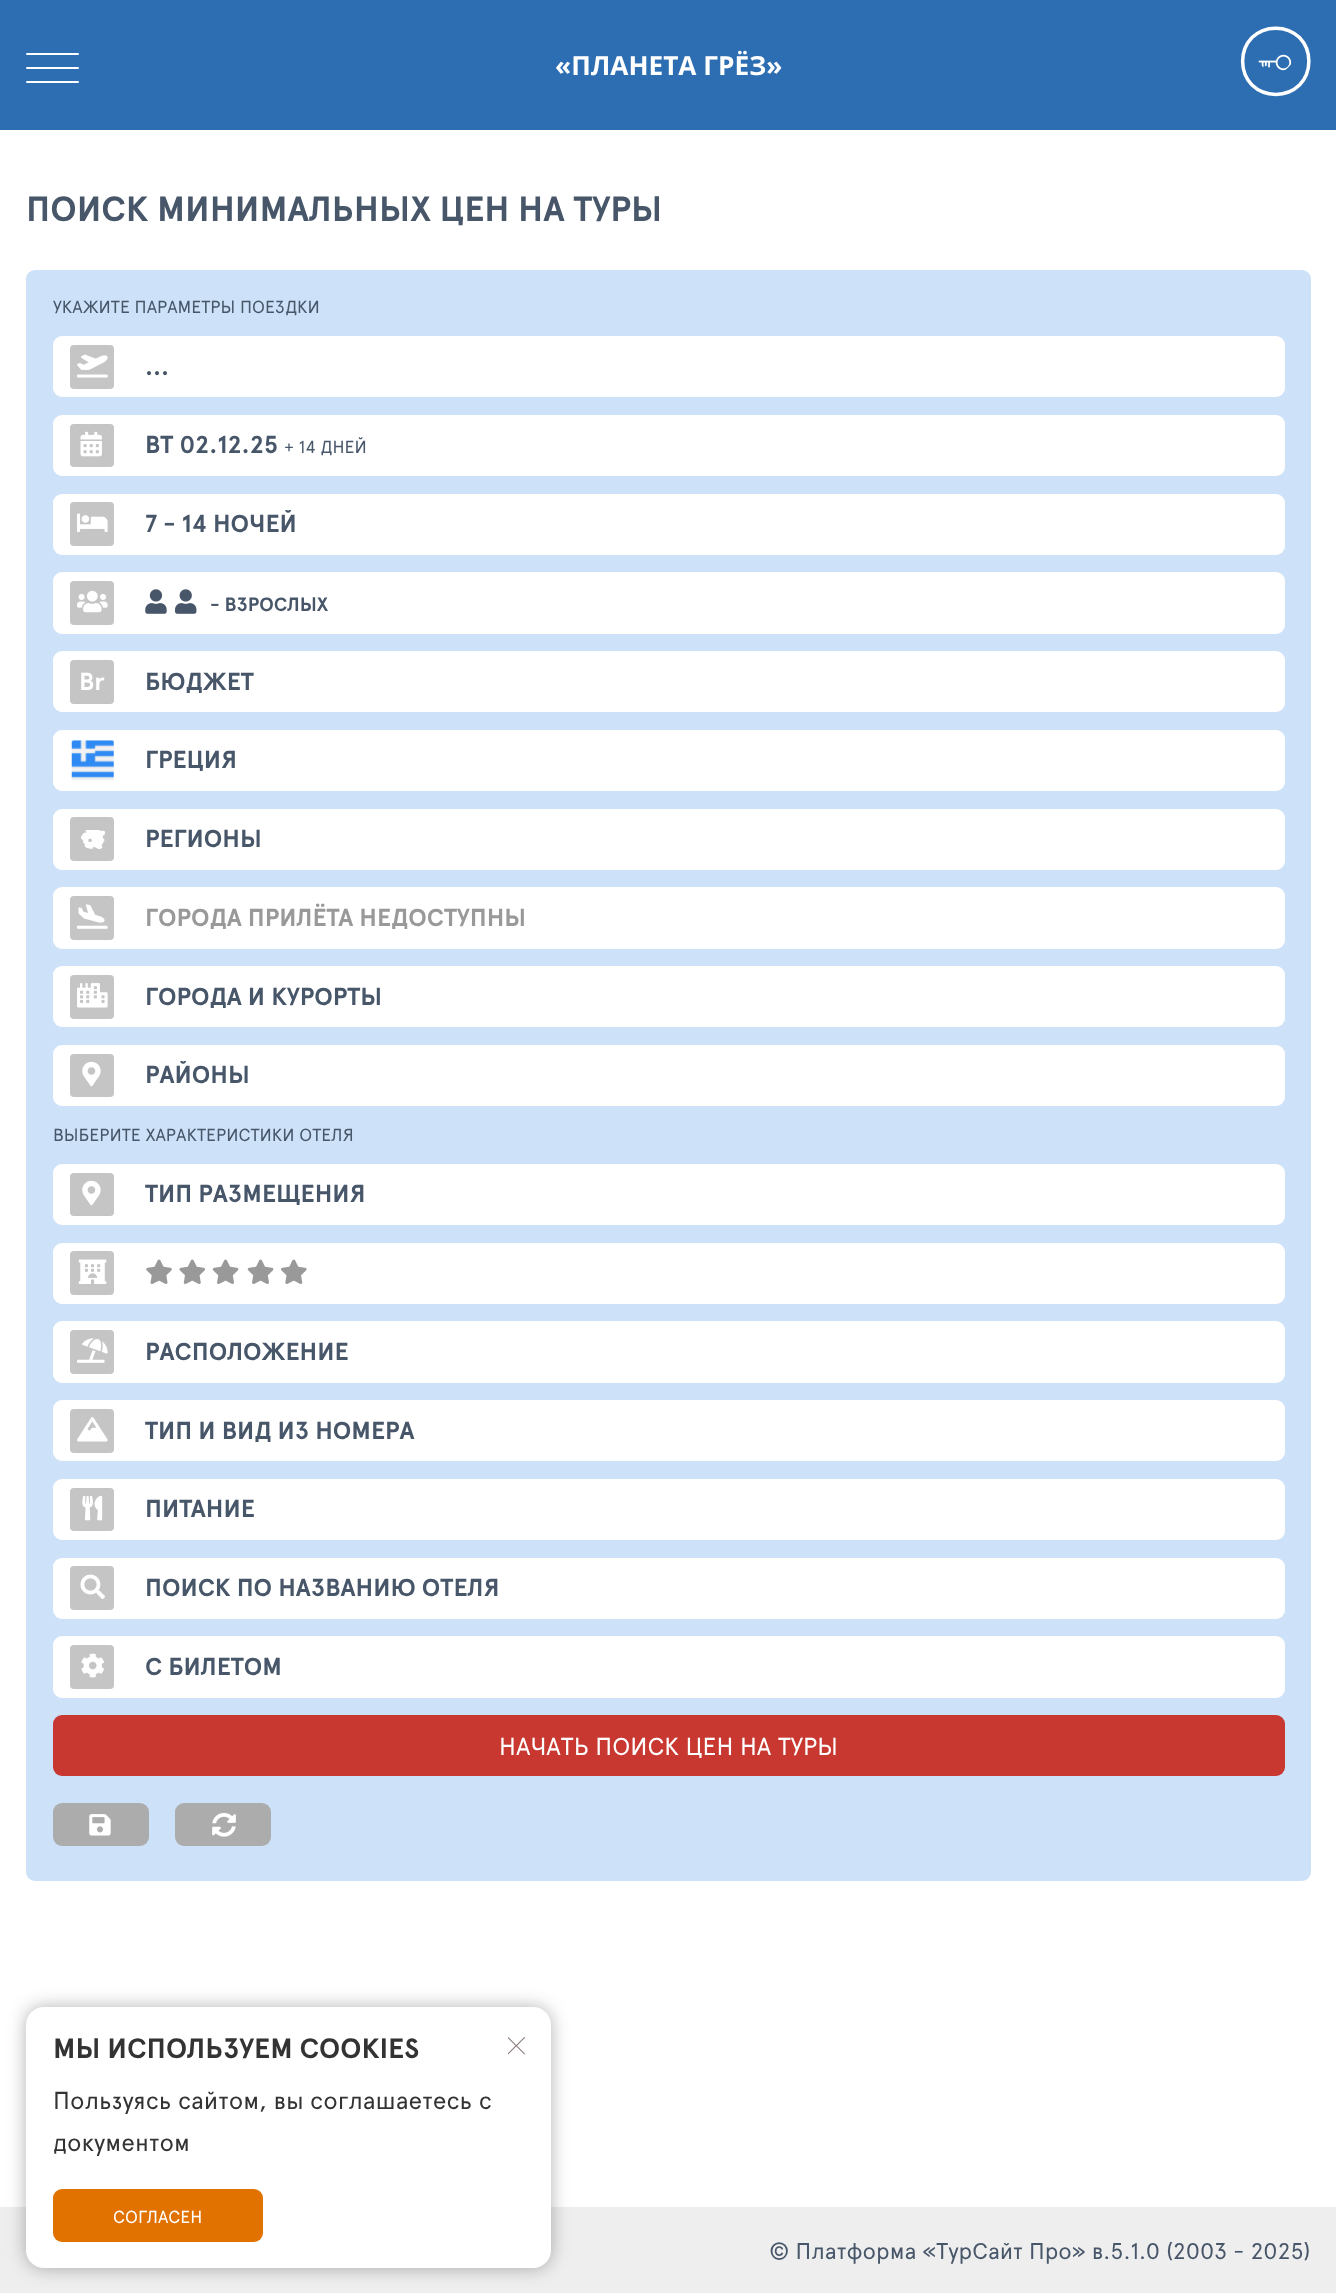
(async () => {
  const canvas = document.querySelector("canvas");
  canvas.width = 1336;
  canvas.height = 2293;
  const ctx = canvas.getContext("2d");
  ctx.miterLimit = 4;
  ctx.fontKerning = "normal";
  async function loadImage(src) {
    const img = new Image();
    img.src = src;
    await img.decode();
    return img;
  }
  let path;

  ctx.fillStyle = "#ffffff";
  ctx.fillRect(0, 0, 1336, 2293);
  ctx.fillStyle = "#2d6eb3";
  ctx.fillRect(0, 0, 1336, 130);
  ctx.fillStyle = "#ffffff";
  ctx.beginPath();
  ctx.roundRect(26, 53, 53, 2, 1);
  ctx.fill();
  ctx.beginPath();
  ctx.roundRect(26, 67, 53, 2, 1);
  ctx.fill();
  ctx.beginPath();
  ctx.roundRect(26, 81, 53, 2, 1);
  ctx.fill();
  ctx.drawImage(await loadImage("img/1.png"), 1258, 54, 34, 17);
  path = new Path2D("M1299.5 37.5C1312 50.5 1312 72 1299.5 85C1286.5 97.5 1265 97.5 1252 85C1239.5 72 1239.5 50.5 1252 37.5C1265 25 1286.5 25 1299.5 37.5Z");
  ctx.strokeStyle = "#ffffff";
  ctx.lineWidth = 3.5;
  ctx.stroke(path);
  ctx.fillStyle = "#cde2f8";
  ctx.beginPath();
  ctx.roundRect(26, 270, 1285, 1611, 9);
  ctx.fill();
  ctx.fillStyle = "#ffffff";
  ctx.beginPath();
  ctx.roundRect(53, 336, 1232, 61, 9);
  ctx.fill();
  ctx.fillStyle = "#c5c5c5";
  ctx.beginPath();
  ctx.roundRect(70, 345, 44, 44, 4);
  ctx.fill();
  ctx.drawImage(await loadImage("img/2.png"), 77, 354, 31, 24);
  ctx.fillStyle = "#ffffff";
  ctx.beginPath();
  ctx.roundRect(53, 415, 1232, 61, 9);
  ctx.fill();
  ctx.fillStyle = "#c5c5c5";
  ctx.beginPath();
  ctx.roundRect(70, 424, 44, 43, 4);
  ctx.fill();
  ctx.drawImage(await loadImage("img/3.png"), 80, 431, 22, 26);
  ctx.fillStyle = "#ffffff";
  ctx.beginPath();
  ctx.roundRect(53, 494, 1232, 61, 9);
  ctx.fill();
  ctx.fillStyle = "#c5c5c5";
  ctx.beginPath();
  ctx.roundRect(70, 502, 44, 44, 4);
  ctx.fill();
  ctx.drawImage(await loadImage("img/4.png"), 77, 513, 31, 19);
  ctx.fillStyle = "#ffffff";
  ctx.beginPath();
  ctx.roundRect(53, 572, 1232, 62, 9);
  ctx.fill();
  ctx.fillStyle = "#c5c5c5";
  ctx.beginPath();
  ctx.roundRect(70, 581, 44, 44, 4);
  ctx.fill();
  ctx.drawImage(await loadImage("img/5.png"), 77, 590, 31, 23);
  ctx.drawImage(await loadImage("img/6.png"), 145, 589, 22, 25);
  ctx.drawImage(await loadImage("img/7.png"), 175, 589, 22, 25);
  ctx.fillStyle = "#ffffff";
  ctx.beginPath();
  ctx.roundRect(53, 651, 1232, 61, 9);
  ctx.fill();
  ctx.fillStyle = "#c5c5c5";
  ctx.beginPath();
  ctx.roundRect(70, 660, 44, 44, 4);
  ctx.fill();
  ctx.fillStyle = "#ffffff";
  ctx.beginPath();
  ctx.roundRect(53, 730, 1232, 61, 9);
  ctx.fill();
  ctx.drawImage(await loadImage("img/8.png"), 71, 740, 43, 41);
  ctx.beginPath();
  ctx.roundRect(53, 809, 1232, 61, 9);
  ctx.fill();
  ctx.fillStyle = "#c5c5c5";
  ctx.beginPath();
  ctx.roundRect(70, 817, 44, 44, 4);
  ctx.fill();
  ctx.drawImage(await loadImage("img/9.png"), 81, 830, 24, 19);
  ctx.fillStyle = "#ffffff";
  ctx.beginPath();
  ctx.roundRect(53, 887, 1232, 62, 9);
  ctx.fill();
  ctx.fillStyle = "#c5c5c5";
  ctx.beginPath();
  ctx.roundRect(70, 896, 44, 44, 4);
  ctx.fill();
  ctx.drawImage(await loadImage("img/10.png"), 77, 904, 31, 25);
  ctx.fillStyle = "#ffffff";
  ctx.beginPath();
  ctx.roundRect(53, 966, 1232, 61, 9);
  ctx.fill();
  ctx.fillStyle = "#c5c5c5";
  ctx.beginPath();
  ctx.roundRect(70, 975, 44, 44, 4);
  ctx.fill();
  ctx.drawImage(await loadImage("img/11.png"), 77, 983, 31, 25);
  ctx.fillStyle = "#ffffff";
  ctx.beginPath();
  ctx.roundRect(53, 1045, 1232, 61, 9);
  ctx.fill();
  ctx.fillStyle = "#c5c5c5";
  ctx.beginPath();
  ctx.roundRect(70, 1054, 44, 43, 4);
  ctx.fill();
  ctx.drawImage(await loadImage("img/12.png"), 82, 1061, 19, 26);
  ctx.fillStyle = "#ffffff";
  ctx.beginPath();
  ctx.roundRect(53, 1164, 1232, 61, 9);
  ctx.fill();
  ctx.fillStyle = "#c5c5c5";
  ctx.beginPath();
  ctx.roundRect(70, 1173, 44, 43, 4);
  ctx.fill();
  ctx.drawImage(await loadImage("img/12.png"), 82, 1180, 19, 26);
  ctx.fillStyle = "#ffffff";
  ctx.beginPath();
  ctx.roundRect(53, 1243, 1232, 61, 9);
  ctx.fill();
  ctx.drawImage(await loadImage("img/13.png"), 146, 1259, 26, 25);
  ctx.drawImage(await loadImage("img/14.png"), 179, 1259, 26, 25);
  ctx.drawImage(await loadImage("img/15.png"), 212, 1259, 27, 25);
  ctx.drawImage(await loadImage("img/15.png"), 247, 1259, 27, 25);
  ctx.drawImage(await loadImage("img/16.png"), 281, 1259, 26, 25);
  ctx.fillStyle = "#c5c5c5";
  ctx.beginPath();
  ctx.roundRect(70, 1251, 44, 44, 4);
  ctx.fill();
  ctx.drawImage(await loadImage("img/17.png"), 78, 1259, 29, 25);
  ctx.fillStyle = "#ffffff";
  ctx.beginPath();
  ctx.roundRect(53, 1321, 1232, 62, 9);
  ctx.fill();
  ctx.fillStyle = "#c5c5c5";
  ctx.beginPath();
  ctx.roundRect(70, 1330, 44, 44, 4);
  ctx.fill();
  ctx.drawImage(await loadImage("img/18.png"), 77, 1338, 31, 25);
  ctx.fillStyle = "#ffffff";
  ctx.beginPath();
  ctx.roundRect(53, 1400, 1232, 61, 9);
  ctx.fill();
  ctx.fillStyle = "#c5c5c5";
  ctx.beginPath();
  ctx.roundRect(70, 1409, 44, 44, 4);
  ctx.fill();
  ctx.drawImage(await loadImage("img/19.png"), 77, 1417, 31, 25);
  ctx.fillStyle = "#ffffff";
  ctx.beginPath();
  ctx.roundRect(53, 1479, 1232, 61, 9);
  ctx.fill();
  ctx.fillStyle = "#c5c5c5";
  ctx.beginPath();
  ctx.roundRect(70, 1488, 44, 43, 4);
  ctx.fill();
  ctx.drawImage(await loadImage("img/20.png"), 82, 1495, 21, 26);
  ctx.fillStyle = "#ffffff";
  ctx.beginPath();
  ctx.roundRect(53, 1558, 1232, 61, 9);
  ctx.fill();
  ctx.fillStyle = "#c5c5c5";
  ctx.beginPath();
  ctx.roundRect(70, 1566, 44, 44, 4);
  ctx.fill();
  ctx.drawImage(await loadImage("img/21.png"), 80, 1574, 25, 25);
  ctx.fillStyle = "#ffffff";
  ctx.beginPath();
  ctx.roundRect(53, 1636, 1232, 62, 9);
  ctx.fill();
  ctx.fillStyle = "#c5c5c5";
  ctx.beginPath();
  ctx.roundRect(70, 1645, 44, 44, 4);
  ctx.fill();
  ctx.drawImage(await loadImage("img/22.png"), 81, 1653, 23, 25);
  ctx.fillStyle = "#c83831";
  ctx.beginPath();
  ctx.roundRect(53, 1715, 1232, 61, 9);
  ctx.fill();
  ctx.fillStyle = "#acacac";
  ctx.beginPath();
  ctx.roundRect(53, 1803, 96, 43, 9);
  ctx.fill();
  ctx.drawImage(await loadImage("img/23.png"), 89, 1814, 22, 22);
  ctx.beginPath();
  ctx.roundRect(175, 1803, 96, 43, 9);
  ctx.fill();
  ctx.drawImage(await loadImage("img/24.png"), 212, 1813, 24, 24);
  ctx.fillStyle = "#eeeeee";
  ctx.fillRect(0, 2207, 1336, 86);
  ctx.fillStyle = "rgba(0, 0, 0, 0.3)";
  ctx.filter = "blur(9px)";
  ctx.beginPath();
  ctx.roundRect(26, 2007, 525, 261, 18);
  ctx.fill();
  ctx.filter = "none";
  ctx.fillStyle = "#ffffff";
  ctx.beginPath();
  ctx.roundRect(26, 2007, 525, 261, 18);
  ctx.fill();
  ctx.drawImage(await loadImage("img/25.png"), 508, 2037, 17, 18);
  ctx.fillStyle = "#e27200";
  ctx.beginPath();
  ctx.roundRect(53, 2189, 210, 53, 9);
  ctx.fill();
  ctx.font = "bold 26.25px Open Sans";
  ctx.fillStyle = "#ffffff";
  ctx.fillText("«ПЛАНЕТА ГРЁЗ»", 555, 75);
  ctx.font = "bold 35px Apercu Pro";
  ctx.fillStyle = "#475669";
  ctx.fillText("ПОИСК МИНИМАЛЬНЫХ ЦЕН НА ТУРЫ", 26, 221);
  ctx.font = "17.5px Apercu Pro";
  ctx.fillText("УКАЖИТЕ ПАРАМЕТРЫ ПОЕЗДКИ", 53, 313);
  ctx.font = "bold 24.5px Apercu Pro";
  ctx.fillText("...", 145, 375);
  ctx.fillText("ВТ 02.12.25", 145, 453);
  ctx.font = "17.5px Apercu Pro";
  ctx.fillText("+ 14 ДНЕЙ", 284, 453);
  ctx.font = "bold 24.5px Apercu Pro";
  ctx.fillText("7 - 14 НОЧЕЙ", 145, 532);
  ctx.font = "bold 19.25px Apercu Pro";
  ctx.fillText("- ВЗРОСЛЫХ", 210, 611);
  ctx.font = "bold 24.5px Apercu Pro";
  ctx.fillStyle = "#ffffff";
  ctx.fillText("Br", 79, 690);
  ctx.fillStyle = "#475669";
  for (const [text, x, y] of [
    ["БЮДЖЕТ", 145, 690],
    ["ГРЕЦИЯ", 145, 768],
    ["РЕГИОНЫ", 145, 847],
  ]) {
    ctx.fillText(text, x, y);
  }
  ctx.fillStyle = "#999999";
  ctx.fillText("ГОРОДА ПРИЛЁТА НЕДОСТУПНЫ", 145, 926);
  ctx.fillStyle = "#475669";
  ctx.fillText("ГОРОДА И КУРОРТЫ", 145, 1005);
  ctx.fillText("РАЙОНЫ", 145, 1083);
  ctx.font = "17.5px Apercu Pro";
  ctx.fillText("ВЫБЕРИТЕ ХАРАКТЕРИСТИКИ ОТЕЛЯ", 53, 1141);
  ctx.font = "bold 24.5px Apercu Pro";
  for (const [text, x, y] of [
    ["ТИП РАЗМЕЩЕНИЯ", 145, 1202],
    ["РАСПОЛОЖЕНИЕ", 145, 1360],
    ["ТИП И ВИД ИЗ НОМЕРА", 145, 1439],
    ["ПИТАНИЕ", 145, 1517],
    ["ПОИСК ПО НАЗВАНИЮ ОТЕЛЯ", 145, 1596],
    ["С БИЛЕТОМ", 145, 1675],
  ]) {
    ctx.fillText(text, x, y);
  }
  ctx.font = "24.5px Apercu Pro";
  ctx.fillStyle = "#ffffff";
  ctx.fillText("НАЧАТЬ ПОИСК ЦЕН НА ТУРЫ", 499, 1755);
  ctx.font = "bold 28px Apercu Pro";
  ctx.fillStyle = "#333333";
  ctx.fillText("МЫ ИСПОЛЬЗУЕМ COOKIES", 53, 2058);
  ctx.font = "24.5px Apercu Pro";
  ctx.fillText("Пользуясь сайтом, вы соглашаетесь с", 53, 2109);
  ctx.fillText("документом", 53, 2151);
  ctx.font = "17.5px Apercu Pro";
  ctx.fillStyle = "#ffffff";
  ctx.fillText("СОГЛАСЕН", 113, 2223);
  ctx.font = "22.75px Apercu Pro";
  ctx.fillStyle = "#475669";
  ctx.fillText("© Платформа «ТурСайт Про» в.5.1.0 (2003 - 2025)", 769, 2259);
})();
